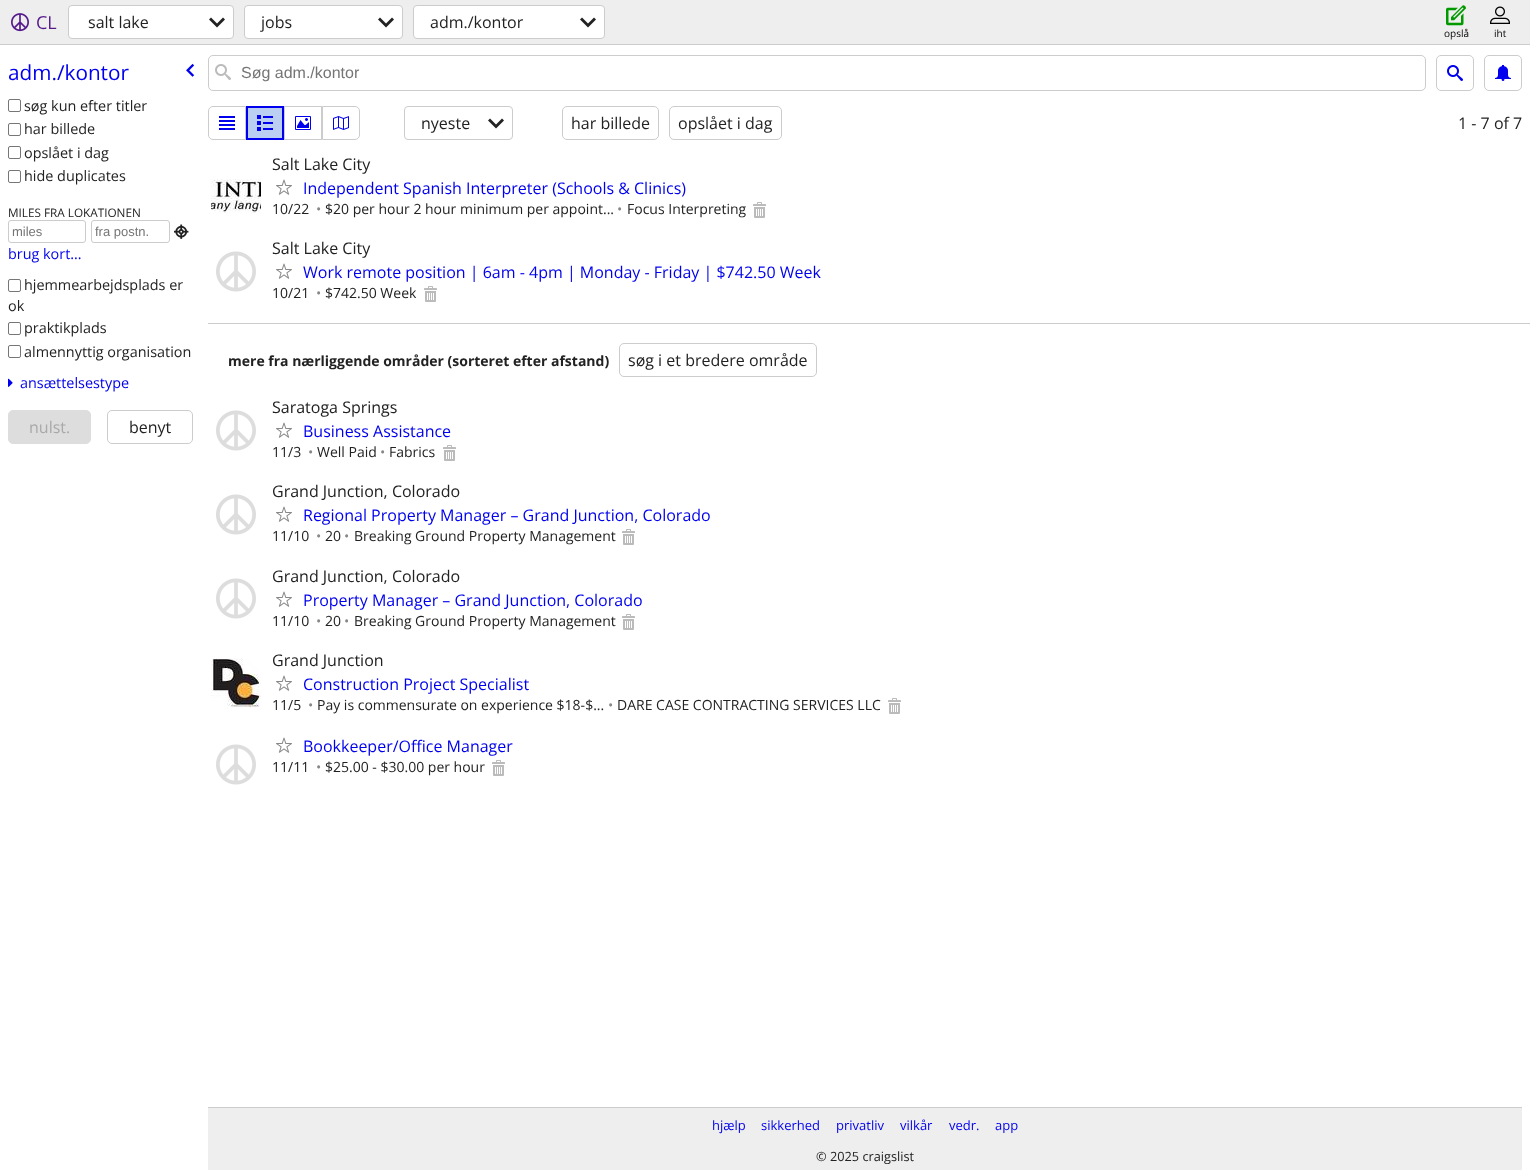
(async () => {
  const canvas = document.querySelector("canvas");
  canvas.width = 1530;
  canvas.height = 1170;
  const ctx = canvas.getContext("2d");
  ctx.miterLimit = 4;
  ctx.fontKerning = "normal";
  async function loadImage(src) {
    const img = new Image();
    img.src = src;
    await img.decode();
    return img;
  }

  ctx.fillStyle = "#ffffff";
  ctx.fillRect(0, 0, 1530, 1170);
  ctx.fillStyle = "#eeeeee";
  ctx.fillRect(0, 0, 1530, 44);
  ctx.fillStyle = "#cccccc";
  ctx.fillRect(0, 44, 1530, 1);
  ctx.drawImage(await loadImage("img/1.png"), 11, 13, 18, 19);
  ctx.fillStyle = "#ffffff";
  ctx.beginPath();
  ctx.roundRect(68.5, 5.5, 165, 33, 3.5);
  ctx.fill();
  ctx.strokeStyle = "#cccccc";
  ctx.stroke();
  ctx.drawImage(await loadImage("img/2.png"), 209, 17, 16, 11);
  ctx.beginPath();
  ctx.roundRect(244.5, 5.5, 158, 33, 3.5);
  ctx.fill();
  ctx.stroke();
  ctx.drawImage(await loadImage("img/2.png"), 378, 17, 16, 11);
  ctx.beginPath();
  ctx.roundRect(413.5, 5.5, 191, 33, 3.5);
  ctx.fill();
  ctx.stroke();
  ctx.drawImage(await loadImage("img/2.png"), 580, 17, 16, 11);
  ctx.drawImage(await loadImage("img/3.png"), 1446, 5, 20, 21);
  ctx.drawImage(await loadImage("img/4.png"), 1490, 6, 20, 18);
  ctx.drawImage(await loadImage("img/5.png"), 186, 63, 9, 14);
  ctx.beginPath();
  ctx.roundRect(8.5, 99.5, 12, 12, 1.5);
  ctx.strokeStyle = "#767676";
  ctx.stroke();
  ctx.beginPath();
  ctx.roundRect(8.5, 123.5, 12, 12, 1.5);
  ctx.stroke();
  ctx.beginPath();
  ctx.roundRect(8.5, 146.5, 12, 12, 1.5);
  ctx.stroke();
  ctx.beginPath();
  ctx.roundRect(8.5, 170.5, 12, 12, 1.5);
  ctx.stroke();
  ctx.beginPath();
  ctx.roundRect(8.5, 220.5, 77, 22, 2.5);
  ctx.strokeStyle = "#cccccc";
  ctx.stroke();
  ctx.beginPath();
  ctx.roundRect(91.5, 220.5, 78, 22, 2.5);
  ctx.stroke();
  ctx.drawImage(await loadImage("img/6.png"), 174, 224, 15, 15);
  ctx.beginPath();
  ctx.roundRect(8.5, 279.5, 12, 12, 1.5);
  ctx.strokeStyle = "#767676";
  ctx.stroke();
  ctx.beginPath();
  ctx.roundRect(8.5, 322.5, 12, 12, 1.5);
  ctx.stroke();
  ctx.beginPath();
  ctx.roundRect(8.5, 345.5, 12, 12, 1.5);
  ctx.stroke();
  ctx.drawImage(await loadImage("img/7.png"), 8, 378, 5, 9);
  ctx.fillStyle = "#dddddd";
  ctx.beginPath();
  ctx.roundRect(8.5, 410.5, 82, 33, 4.5);
  ctx.fill();
  ctx.strokeStyle = "#dddddd";
  ctx.stroke();
  ctx.beginPath();
  ctx.roundRect(107.5, 410.5, 85, 33, 4.5);
  ctx.strokeStyle = "#cccccc";
  ctx.stroke();
  ctx.beginPath();
  ctx.roundRect(208.5, 55.5, 1217, 35, 4.5);
  ctx.stroke();
  ctx.drawImage(await loadImage("img/8.png"), 215, 64, 16, 16);
  ctx.beginPath();
  ctx.roundRect(1436.5, 55.5, 37, 35, 4.5);
  ctx.stroke();
  ctx.drawImage(await loadImage("img/9.png"), 1447, 65, 16, 16);
  ctx.beginPath();
  ctx.roundRect(1484.5, 55.5, 37, 35, 4.5);
  ctx.stroke();
  ctx.drawImage(await loadImage("img/10.png"), 1495, 65, 16, 16);
  ctx.beginPath();
  ctx.roundRect(208.5, 106.5, 37, 33, [4.5, 0, 0, 4.5]);
  ctx.stroke();
  ctx.drawImage(await loadImage("img/11.png"), 219, 116, 16, 14);
  ctx.fillStyle = "#bacff2";
  ctx.beginPath();
  ctx.rect(247, 107, 36, 32);
  ctx.fill();
  ctx.strokeStyle = "#0000ee";
  ctx.lineWidth = 2;
  ctx.stroke();
  ctx.drawImage(await loadImage("img/12.png"), 257, 115, 16, 16);
  ctx.strokeStyle = "#cccccc";
  ctx.lineWidth = 1;
  ctx.strokeRect(284.5, 106.5, 37, 33);
  ctx.drawImage(await loadImage("img/13.png"), 295, 116, 16, 14);
  ctx.beginPath();
  ctx.roundRect(322.5, 106.5, 37, 33, [0, 4.5, 4.5, 0]);
  ctx.stroke();
  ctx.drawImage(await loadImage("img/14.png"), 333, 116, 16, 14);
  ctx.beginPath();
  ctx.roundRect(404.5, 106.5, 108, 33, 3.5);
  ctx.stroke();
  ctx.drawImage(await loadImage("img/2.png"), 488, 118, 16, 11);
  ctx.beginPath();
  ctx.roundRect(562.5, 106.5, 96, 33, 4.5);
  ctx.stroke();
  ctx.beginPath();
  ctx.roundRect(669.5, 106.5, 112, 33, 4.5);
  ctx.stroke();
  ctx.drawImage(await loadImage("img/15.png"), 211, 179, 50, 34);
  ctx.drawImage(await loadImage("img/16.png"), 276, 179, 16, 16);
  ctx.drawImage(await loadImage("img/17.png"), 753, 202, 13, 16);
  ctx.drawImage(await loadImage("img/18.png"), 216, 251, 40, 41);
  ctx.drawImage(await loadImage("img/16.png"), 276, 263, 16, 16);
  ctx.drawImage(await loadImage("img/17.png"), 424, 286, 13, 16);
  ctx.fillStyle = "#cccccc";
  ctx.fillRect(208, 323, 1322, 1);
  ctx.beginPath();
  ctx.roundRect(619.5, 343.5, 197, 33, 4.5);
  ctx.stroke();
  ctx.drawImage(await loadImage("img/18.png"), 216, 410, 40, 41);
  ctx.drawImage(await loadImage("img/16.png"), 276, 422, 16, 16);
  ctx.drawImage(await loadImage("img/17.png"), 443, 445, 13, 16);
  ctx.drawImage(await loadImage("img/18.png"), 216, 494, 40, 41);
  ctx.drawImage(await loadImage("img/16.png"), 276, 506, 16, 16);
  ctx.drawImage(await loadImage("img/17.png"), 622, 529, 13, 16);
  ctx.drawImage(await loadImage("img/18.png"), 216, 578, 40, 41);
  ctx.drawImage(await loadImage("img/16.png"), 276, 591, 16, 16);
  ctx.drawImage(await loadImage("img/17.png"), 622, 614, 13, 16);
  ctx.drawImage(await loadImage("img/19.png"), 211, 658, 50, 50);
  ctx.drawImage(await loadImage("img/16.png"), 276, 675, 16, 16);
  ctx.drawImage(await loadImage("img/17.png"), 888, 698, 13, 16);
  ctx.drawImage(await loadImage("img/18.png"), 216, 744, 40, 41);
  ctx.drawImage(await loadImage("img/16.png"), 276, 737, 16, 16);
  ctx.drawImage(await loadImage("img/17.png"), 492, 760, 13, 16);
  ctx.fillStyle = "#eeeeee";
  ctx.fillRect(208, 1108, 1314, 62);
  ctx.fillStyle = "#cccccc";
  ctx.fillRect(208, 1107, 1314, 1);
  ctx.font = "18px Open Sans";
  ctx.fillStyle = "#551a8b";
  ctx.fillText("CL", 36, 29);
  ctx.font = "16px Open Sans";
  ctx.fillStyle = "#222222";
  for (const [text, x, y] of [
    ["salt lake", 88, 28],
    ["jobs", 261, 28],
    ["adm./kontor", 430, 28],
  ]) {
    ctx.fillText(text, x, y);
  }
  ctx.font = "10px Open Sans";
  ctx.fillStyle = "#000000";
  ctx.fillText("opslå", 1444, 37);
  ctx.fillText("iht", 1494, 37);
  ctx.font = "20.75px Open Sans";
  ctx.fillStyle = "#0000ee";
  ctx.fillText("adm./kontor", 8, 80);
  ctx.font = "14.4px Open Sans";
  ctx.fillStyle = "#222222";
  for (const [text, x, y] of [
    ["søg kun efter titler", 24, 111],
    ["har billede", 24, 134],
    ["opslået i dag", 24, 158],
    ["hide duplicates", 24, 181],
  ]) {
    ctx.fillText(text, x, y);
  }
  ctx.font = "11.75px Open Sans";
  ctx.fillText("MILES FRA LOKATIONEN", 8, 217);
  ctx.font = "13px Liberation Sans";
  ctx.fillStyle = "#757575";
  ctx.fillText("miles", 12, 236);
  ctx.fillText("fra postn.", 95, 236);
  ctx.font = "14.4px Open Sans";
  ctx.fillStyle = "#0000ee";
  ctx.fillText("brug kort...", 8, 259);
  ctx.fillStyle = "#222222";
  for (const [text, x, y] of [
    ["hjemmearbejdsplads er", 24, 290],
    ["ok", 8, 311],
    ["praktikplads", 24, 333],
    ["almennyttig organisation", 24, 357],
  ]) {
    ctx.fillText(text, x, y);
  }
  ctx.fillStyle = "#0000ee";
  ctx.fillText("ansættelsestype", 20, 388);
  ctx.font = "16px Open Sans";
  ctx.fillStyle = "#a9a9a9";
  ctx.fillText("nulst.", 29, 433);
  ctx.fillStyle = "#222222";
  ctx.fillText("benyt", 129, 433);
  ctx.font = "16px Liberation Sans";
  ctx.fillStyle = "#757575";
  ctx.fillText("Søg adm./kontor", 241, 78);
  ctx.font = "16px Open Sans";
  ctx.fillStyle = "#222222";
  for (const [text, x, y] of [
    ["nyeste", 421, 129],
    ["har billede", 571, 129],
    ["opslået i dag", 678, 129],
    ["1 - 7 of 7", 1458, 129],
    ["Salt Lake City", 272, 170],
  ]) {
    ctx.fillText(text, x, y);
  }
  ctx.fillStyle = "#0000ee";
  ctx.fillText("Independent Spanish Interpreter (Schools & Clinics)", 303, 194);
  ctx.font = "14px Open Sans";
  ctx.fillStyle = "#222222";
  ctx.fillText("10/22", 272, 214);
  ctx.fillStyle = "#888888";
  ctx.fillText("•", 316, 214);
  ctx.fillStyle = "#222222";
  ctx.fillText("$20 per hour 2 hour minimum per appoint...", 325, 214);
  ctx.fillStyle = "#888888";
  ctx.fillText("•", 617, 214);
  ctx.fillStyle = "#222222";
  ctx.fillText("Focus Interpreting", 627, 214);
  ctx.font = "16px Open Sans";
  ctx.fillText("Salt Lake City", 272, 254);
  ctx.fillStyle = "#0000ee";
  ctx.fillText("Work remote position | 6am - 4pm | Monday - Friday | $742.50 Week", 303, 278);
  ctx.font = "14px Open Sans";
  ctx.fillStyle = "#222222";
  ctx.fillText("10/21", 272, 298);
  ctx.fillStyle = "#888888";
  ctx.fillText("•", 316, 298);
  ctx.fillStyle = "#222222";
  ctx.fillText("$742.50 Week", 325, 298);
  ctx.font = "bold 14px Open Sans";
  ctx.fillText("mere fra nærliggende områder (sorteret efter afstand)", 228, 366);
  ctx.font = "16px Open Sans";
  ctx.fillText("søg i et bredere område", 628, 366);
  ctx.fillText("Saratoga Springs", 272, 413);
  ctx.fillStyle = "#0000ee";
  ctx.fillText("Business Assistance", 303, 437);
  ctx.font = "14px Open Sans";
  ctx.fillStyle = "#222222";
  ctx.fillText("11/3", 272, 457);
  ctx.fillStyle = "#888888";
  ctx.fillText("•", 308, 457);
  ctx.fillStyle = "#222222";
  ctx.fillText("Well Paid", 317, 457);
  ctx.fillStyle = "#888888";
  ctx.fillText("•", 380, 457);
  ctx.fillStyle = "#222222";
  ctx.fillText("Fabrics", 389, 457);
  ctx.font = "16px Open Sans";
  ctx.fillText("Grand Junction, Colorado", 272, 497);
  ctx.fillStyle = "#0000ee";
  ctx.fillText("Regional Property Manager – Grand Junction, Colorado", 303, 521);
  ctx.font = "14px Open Sans";
  ctx.fillStyle = "#222222";
  ctx.fillText("11/10", 272, 541);
  ctx.fillStyle = "#888888";
  ctx.fillText("•", 316, 541);
  ctx.fillStyle = "#222222";
  ctx.fillText("20", 325, 541);
  ctx.fillStyle = "#888888";
  ctx.fillText("•", 344, 541);
  ctx.fillStyle = "#222222";
  ctx.fillText("Breaking Ground Property Management", 354, 541);
  ctx.font = "16px Open Sans";
  ctx.fillText("Grand Junction, Colorado", 272, 582);
  ctx.fillStyle = "#0000ee";
  ctx.fillText("Property Manager – Grand Junction, Colorado", 303, 606);
  ctx.font = "14px Open Sans";
  ctx.fillStyle = "#222222";
  ctx.fillText("11/10", 272, 626);
  ctx.fillStyle = "#888888";
  ctx.fillText("•", 316, 626);
  ctx.fillStyle = "#222222";
  ctx.fillText("20", 325, 626);
  ctx.fillStyle = "#888888";
  ctx.fillText("•", 344, 626);
  ctx.fillStyle = "#222222";
  ctx.fillText("Breaking Ground Property Management", 354, 626);
  ctx.font = "16px Open Sans";
  ctx.fillText("Grand Junction", 272, 666);
  ctx.fillStyle = "#0000ee";
  ctx.fillText("Construction Project Specialist", 303, 690);
  ctx.font = "14px Open Sans";
  ctx.fillStyle = "#222222";
  ctx.fillText("11/5", 272, 710);
  ctx.fillStyle = "#888888";
  ctx.fillText("•", 308, 710);
  ctx.fillStyle = "#222222";
  ctx.fillText("Pay is commensurate on experience $18-$...", 317, 710);
  ctx.fillStyle = "#888888";
  ctx.fillText("•", 608, 710);
  ctx.fillStyle = "#222222";
  ctx.fillText("DARE CASE CONTRACTING SERVICES LLC", 617, 710);
  ctx.font = "16px Open Sans";
  ctx.fillStyle = "#0000ee";
  ctx.fillText("Bookkeeper/Office Manager", 303, 752);
  ctx.font = "14px Open Sans";
  ctx.fillStyle = "#222222";
  ctx.fillText("11/11", 272, 772);
  ctx.fillStyle = "#888888";
  ctx.fillText("•", 316, 772);
  ctx.fillStyle = "#222222";
  ctx.fillText("$25.00 - $30.00 per hour", 325, 772);
  ctx.font = "13px Open Sans";
  ctx.fillStyle = "#0000ee";
  for (const [text, x, y] of [
    ["hjælp", 712, 1130],
    ["sikkerhed", 761, 1130],
    ["privatliv", 836, 1130],
    ["vilkår", 900, 1130],
    ["vedr.", 949, 1130],
    ["app", 995, 1130],
  ]) {
    ctx.fillText(text, x, y);
  }
  ctx.font = "12.75px Open Sans";
  ctx.fillStyle = "#222222";
  ctx.fillText("© 2025 craigslist", 816, 1161);
})();
